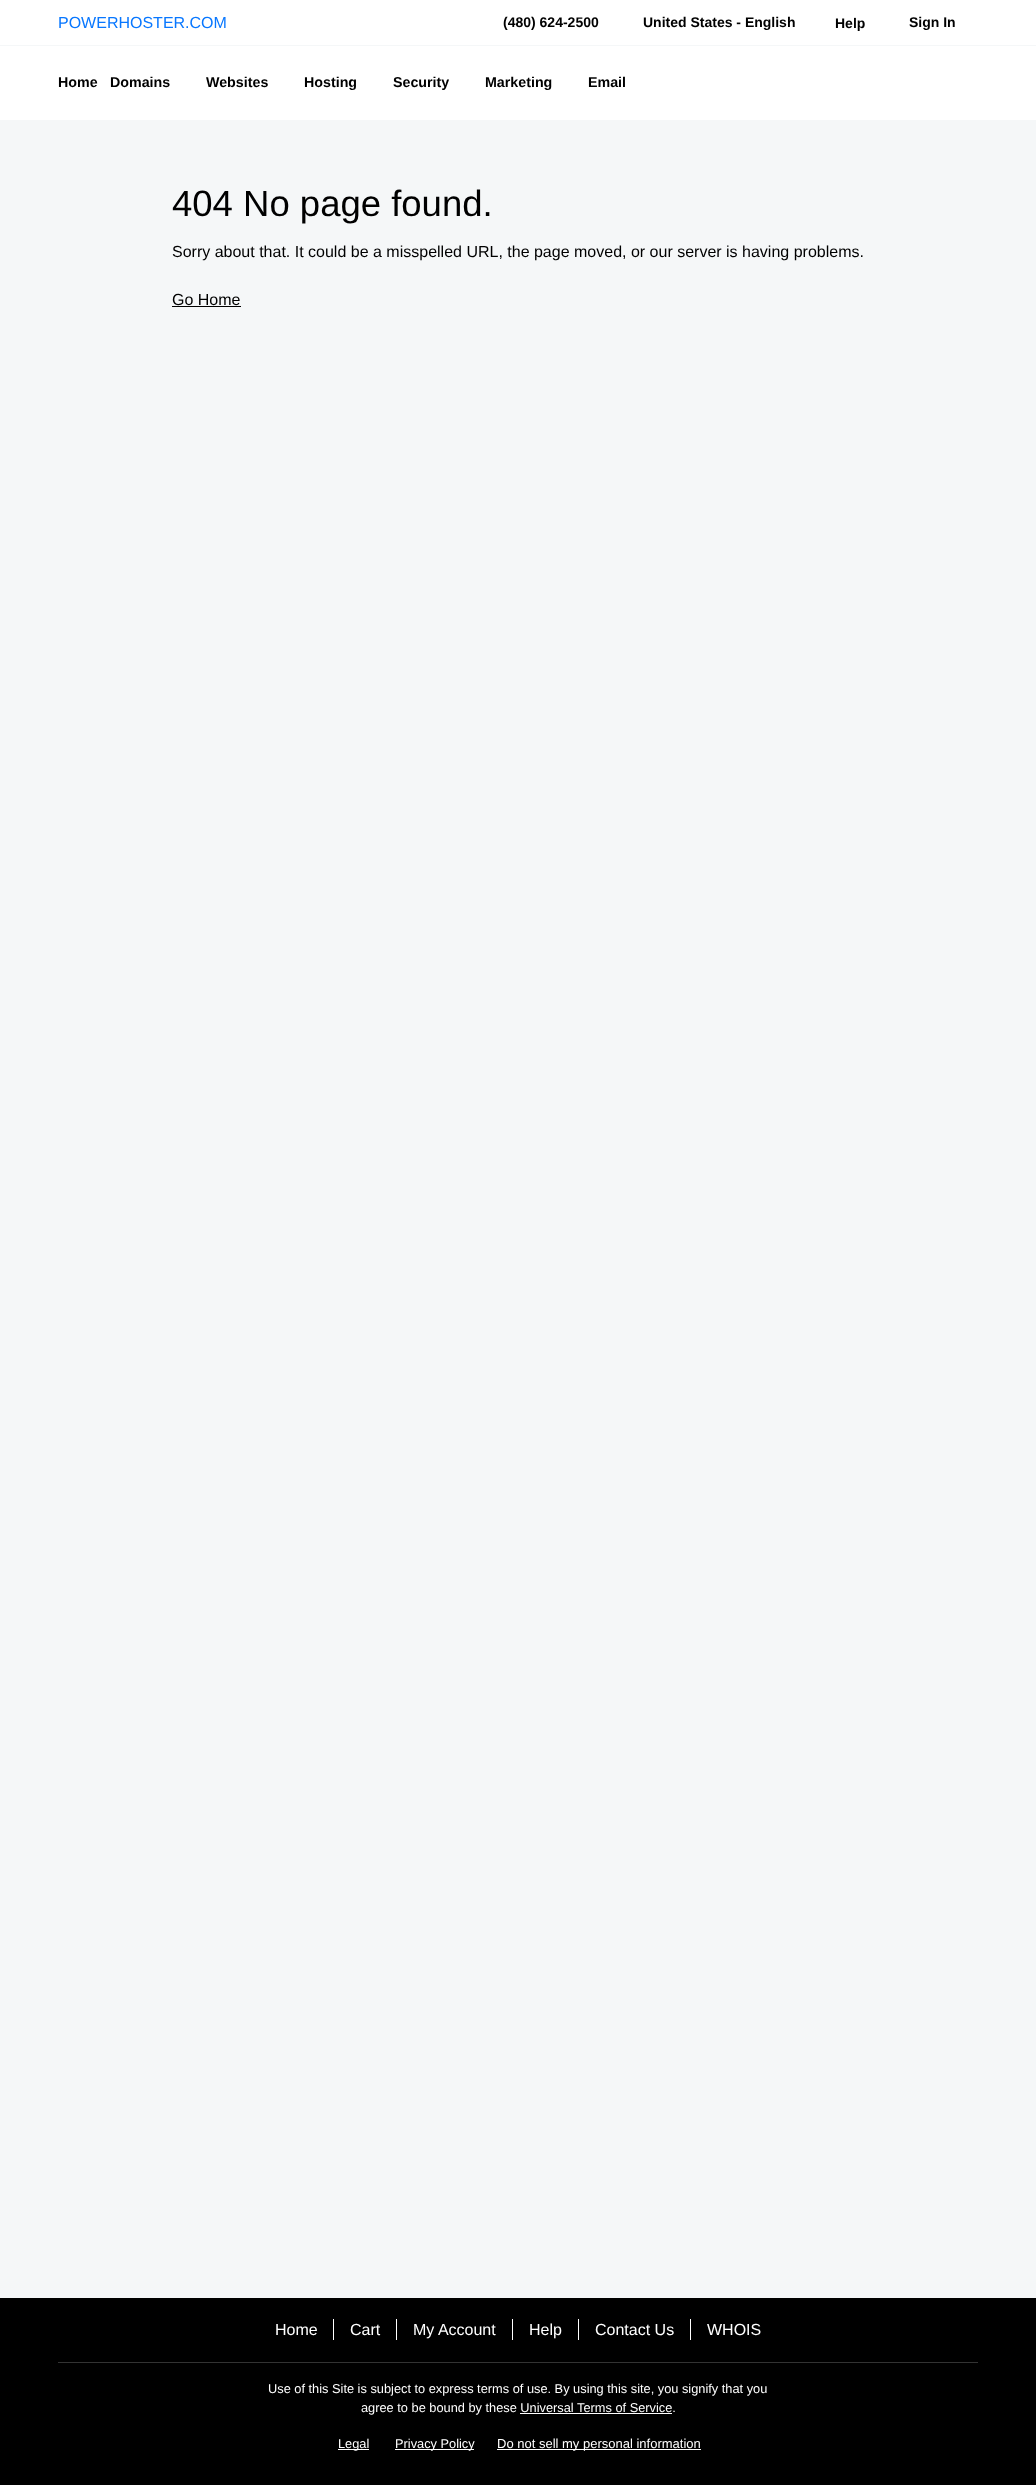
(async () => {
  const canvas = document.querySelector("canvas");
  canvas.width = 1036;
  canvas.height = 2485;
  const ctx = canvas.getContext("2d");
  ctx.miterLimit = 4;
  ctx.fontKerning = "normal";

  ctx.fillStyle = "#f5f7f8";
  ctx.fillRect(0, 0, 1036, 2485);
  for (const [x, y, w, h, color] of [
    [0, 0, 1036, 45, "#ffffff"],
    [0, 46, 1036, 74, "#ffffff"],
    [172, 306, 69, 1, "#000000"],
    [0, 2298, 1036, 187, "#000000"],
    [58, 2362, 920, 1, "#333333"],
    [333, 2319, 1, 21, "#ffffff"],
    [396, 2319, 1, 21, "#ffffff"],
    [512, 2319, 1, 21, "#ffffff"],
    [578, 2319, 1, 21, "#ffffff"],
    [690, 2319, 1, 21, "#ffffff"],
    [520, 2413, 152, 1, "#ffffff"],
    [338, 2449, 31, 1, "#ffffff"],
    [395, 2449, 79, 1, "#ffffff"],
    [497, 2449, 204, 1, "#ffffff"],
  ]) {
    ctx.fillStyle = color;
    ctx.fillRect(x, y, w, h);
  }
  ctx.font = "16px Liberation Sans";
  ctx.fillStyle = "#0877ff";
  ctx.fillText("POWERHOSTER.COM", 58, 28);
  ctx.font = "bold 14px Liberation Sans";
  ctx.fillStyle = "#000000";
  for (const [text, x, y] of [
    ["(480) 624-2500", 503, 27],
    ["United States - English", 643, 27],
    ["Help", 835, 28],
    ["Sign In", 909, 27],
  ]) {
    ctx.fillText(text, x, y);
  }
  ctx.font = "bold 14.25px Liberation Sans";
  for (const [text, x, y] of [
    ["Home", 58, 87],
    ["Domains", 110, 87],
    ["Websites", 206, 87],
    ["Hosting", 304, 87],
    ["Security", 393, 87],
    ["Marketing", 485, 87],
    ["Email", 588, 87],
  ]) {
    ctx.fillText(text, x, y);
  }
  ctx.font = "36.5px Liberation Sans";
  ctx.fillText("404 No page found.", 172, 216);
  ctx.font = "16px Liberation Sans";
  ctx.fillText("Sorry about that. It could be a misspelled URL, the page moved, or our server is having problems.", 172, 257);
  ctx.fillText("Go Home", 172, 305);
  ctx.fillStyle = "#ffffff";
  for (const [text, x, y] of [
    ["Home", 275, 2335],
    ["Cart", 350, 2335],
    ["My Account", 413, 2335],
    ["Help", 529, 2335],
    ["Contact Us", 595, 2335],
    ["WHOIS", 707, 2335],
  ]) {
    ctx.fillText(text, x, y);
  }
  ctx.font = "12.8px Liberation Sans";
  for (const [text, x, y] of [
    ["Use of this Site is subject to express terms of use. By using this site, you signify that you", 268, 2393],
    ["agree to be bound by these Universal Terms of Service.", 361, 2412],
    ["Legal", 338, 2448],
    ["Privacy Policy", 395, 2448],
  ]) {
    ctx.fillText(text, x, y);
  }
  ctx.font = "13px Liberation Sans";
  ctx.fillText("Do not sell my personal information", 497, 2448);
})();
